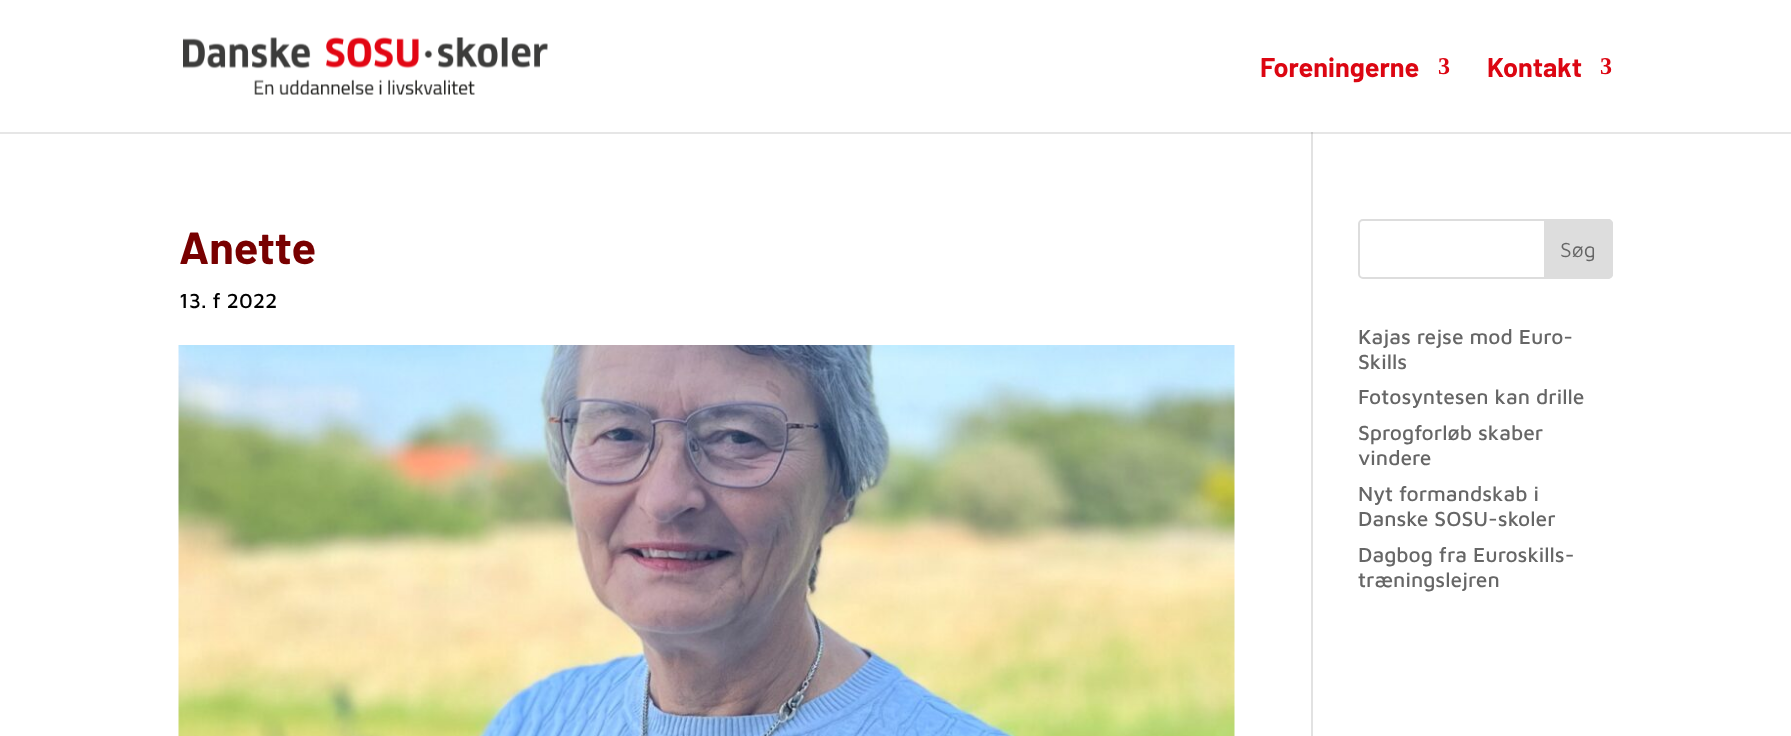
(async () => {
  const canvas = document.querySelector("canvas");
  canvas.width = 1791;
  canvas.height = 736;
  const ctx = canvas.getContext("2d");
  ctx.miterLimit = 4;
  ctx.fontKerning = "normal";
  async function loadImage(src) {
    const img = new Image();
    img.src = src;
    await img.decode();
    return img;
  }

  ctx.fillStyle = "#ffffff";
  ctx.fillRect(0, 0, 1791, 736);
  ctx.fillStyle = "#e6e6e6";
  ctx.fillRect(0, 132, 1791, 2);
  ctx.drawImage(await loadImage("img/1.png"), 183, 37, 365, 58);
  ctx.fillStyle = "#e2e2e2";
  ctx.fillRect(1311, 132, 2, 604);
  ctx.fillStyle = "#cbcbcb";
  ctx.fillRect(1311, 132, 2, 2);
  ctx.drawImage(await loadImage("img/2.png"), 178, 345, 1057, 391);
  ctx.beginPath();
  ctx.roundRect(1359, 220, 253, 58, 4);
  ctx.strokeStyle = "#dddddd";
  ctx.lineWidth = 2;
  ctx.stroke();
  ctx.fillStyle = "#dddddd";
  ctx.beginPath();
  ctx.roundRect(1545, 220, 67, 58, [0, 4, 4, 0]);
  ctx.fill();
  ctx.stroke();
  ctx.font = "bold 27px Barlow";
  ctx.fillStyle = "#dc0612";
  ctx.fillText("Foreningerne", 1260, 77);
  ctx.font = "bold 24px Liberation Serif";
  ctx.fillText("3", 1438, 74);
  ctx.font = "bold 27px Barlow";
  ctx.fillText("Kontakt", 1487, 77);
  ctx.font = "bold 24px Liberation Serif";
  ctx.fillText("3", 1600, 74);
  ctx.font = "bold 45px Barlow";
  ctx.fillStyle = "#780000";
  ctx.fillText("Anette", 179, 264);
  ctx.font = "500 21px Maven Pro";
  ctx.fillStyle = "#000000";
  ctx.fillText("13. f 2022", 179, 308);
  ctx.font = "21px Maven Pro";
  ctx.fillStyle = "#666666";
  ctx.fillText("Søg", 1560, 257);
  ctx.font = "500 21px Maven Pro";
  for (const [text, x, y] of [
    ["Kajas rejse mod Euro-", 1358, 344],
    ["Skills", 1358, 369],
    ["Fotosyntesen kan drille", 1358, 404],
    ["Sprogforløb skaber", 1358, 440],
    ["vindere", 1358, 465],
    ["Nyt formandskab i", 1358, 501],
    ["Danske SOSU-skoler", 1358, 526],
    ["Dagbog fra Euroskills-", 1358, 562],
    ["træningslejren", 1358, 587],
  ]) {
    ctx.fillText(text, x, y);
  }
})();
